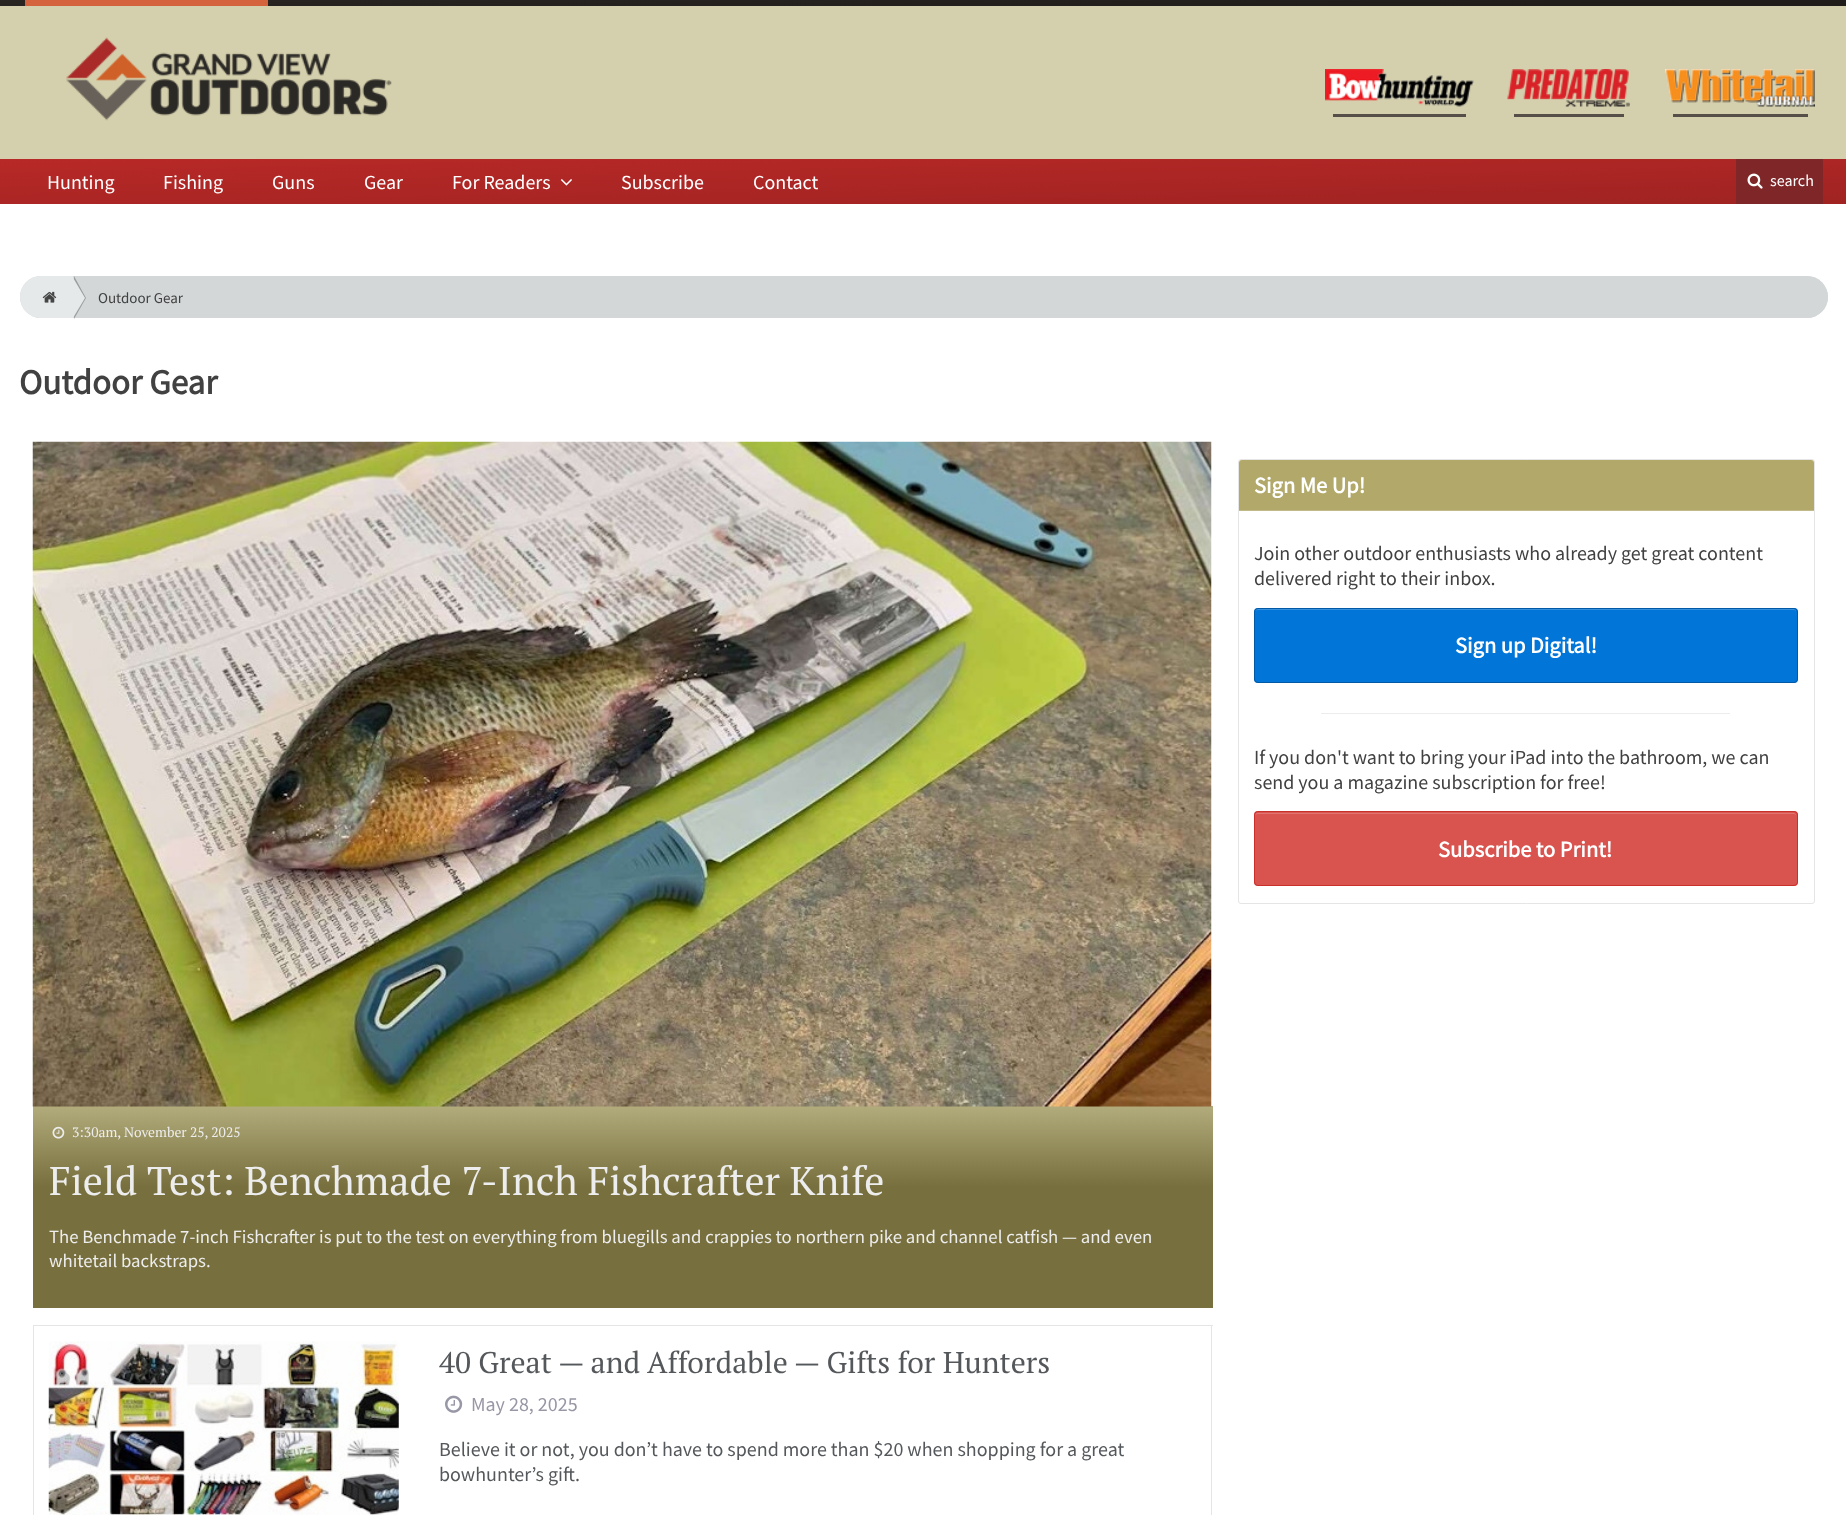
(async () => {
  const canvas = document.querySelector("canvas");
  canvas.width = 1846;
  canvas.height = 1515;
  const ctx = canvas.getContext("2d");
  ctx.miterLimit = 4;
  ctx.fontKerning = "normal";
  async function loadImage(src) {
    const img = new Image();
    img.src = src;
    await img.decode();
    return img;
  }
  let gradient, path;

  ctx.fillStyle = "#ffffff";
  ctx.fillRect(0, 0, 1846, 1515);
  ctx.fillStyle = "#d4cfac";
  ctx.fillRect(0, 6, 1846, 153);
  gradient = ctx.createLinearGradient(922, -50, 924, 25);
  gradient.addColorStop(0, "#2d2926");
  gradient.addColorStop(1, "#1f1c1a");
  ctx.fillStyle = gradient;
  ctx.fillRect(0, 0, 1846, 6);
  ctx.fillStyle = "#d4623c";
  ctx.fillRect(25, 0, 243, 6);
  ctx.drawImage(await loadImage("img/1.png"), 66, 37, 326, 84);
  ctx.drawImage(await loadImage("img/2.png"), 1325, 69, 149, 38);
  ctx.fillStyle = "#564f49";
  ctx.fillRect(1333, 114, 133, 3);
  ctx.drawImage(await loadImage("img/3.png"), 1507, 69, 123, 38);
  ctx.fillRect(1514, 114, 110, 3);
  ctx.drawImage(await loadImage("img/4.png"), 1665, 69, 150, 38);
  ctx.fillRect(1673, 114, 135, 3);
  gradient = ctx.createLinearGradient(922, 136, 924, 226);
  gradient.addColorStop(0, "#b82927");
  gradient.addColorStop(1, "#9f2322");
  ctx.fillStyle = gradient;
  ctx.fillRect(0, 159, 1846, 45);
  ctx.drawImage(await loadImage("img/5.png"), 560, 179, 12, 7);
  ctx.fillStyle = "#7e2628";
  ctx.fillRect(1736, 159, 87, 45);
  ctx.drawImage(await loadImage("img/6.png"), 1747, 173, 16, 16);
  ctx.fillStyle = "#d3d7d7";
  ctx.beginPath();
  ctx.roundRect(20, 276, 1808, 42, 21);
  ctx.fill();
  ctx.fillStyle = "#e5e9e9";
  ctx.beginPath();
  ctx.roundRect(20, 276, 53, 42, [21, 0, 0, 21]);
  ctx.fill();
  ctx.fillStyle = "#9c9e9e";
  path = new Path2D("M74 319V276L86 298Z");
  ctx.fill(path);
  ctx.fillStyle = "#e5e9e9";
  path = new Path2D("M73 318H72V276L85 298Z");
  ctx.fill(path);
  ctx.drawImage(await loadImage("img/7.png"), 42, 291, 15, 12);
  gradient = ctx.createLinearGradient(1753, 297, 1828, 297);
  gradient.addColorStop(0, "rgba(211, 215, 215, 0)");
  gradient.addColorStop(1, "#d3d7d7");
  ctx.fillStyle = gradient;
  ctx.beginPath();
  ctx.roundRect(1753, 276, 75, 42, [0, 21, 21, 0]);
  ctx.fill();
  ctx.beginPath();
  ctx.roundRect(1238.5, 459.5, 576, 444, 2.5);
  ctx.strokeStyle = "#e5e5e5";
  ctx.stroke();
  ctx.fillStyle = "#b1a869";
  ctx.beginPath();
  ctx.roundRect(1239, 460, 575, 51, [3, 3, 0, 0]);
  ctx.fill();
  ctx.fillStyle = "#c1b987";
  ctx.fillRect(1239, 510, 575, 1);
  ctx.fillStyle = "#0275d8";
  ctx.beginPath();
  ctx.roundRect(1254, 608, 544, 75, 4);
  ctx.fill();
  ctx.fillStyle = "#3591e0";
  path = new Path2D("M1258 610H1794C1795 610 1796 611 1796 612C1796 610 1795 609 1794 609H1258C1256 609 1255 610 1255 612C1255 611 1256 610 1258 610Z");
  ctx.fill(path);
  ctx.beginPath();
  ctx.roundRect(1254.5, 608.5, 543, 74, 3.5);
  ctx.strokeStyle = "#025aa5";
  ctx.stroke();
  ctx.fillStyle = "#ececec";
  ctx.fillRect(1321, 713, 409, 1);
  ctx.fillStyle = "#d9534f";
  ctx.beginPath();
  ctx.roundRect(1254, 811, 544, 75, 4);
  ctx.fill();
  ctx.fillStyle = "#e17572";
  path = new Path2D("M1258 814H1794C1795 814 1796 815 1796 816C1796 814 1795 813 1794 813H1258C1256 813 1255 814 1255 816C1255 815 1256 814 1258 814Z");
  ctx.fill(path);
  ctx.beginPath();
  ctx.roundRect(1254.5, 811.5, 543, 74, 3.5);
  ctx.strokeStyle = "#c9302c";
  ctx.stroke();
  gradient = ctx.createLinearGradient(623, 1106, 623, 1308);
  gradient.addColorStop(0, "#b2ab7b");
  gradient.addColorStop(0.4, "#776f3d");
  ctx.fillStyle = gradient;
  ctx.fillRect(33, 1106, 1180, 202);
  ctx.drawImage(await loadImage("img/8.png"), 32, 441, 1180, 666);
  ctx.drawImage(await loadImage("img/9.png"), 52, 1126, 13, 13);
  for (const [x, y, w, h, color] of [
    [33, 1325, 1180, 1, "#e5e5e5"],
    [1211, 1325, 1, 190, "#e5e5e5"],
    [33, 1325, 1, 190, "#e5e5e5"],
  ]) {
    ctx.fillStyle = color;
    ctx.fillRect(x, y, w, h);
  }
  ctx.drawImage(await loadImage("img/10.png"), 48, 1341, 351, 174);
  ctx.drawImage(await loadImage("img/11.png"), 445, 1395, 18, 18);
  ctx.font = "20px Source Sans Pro";
  ctx.fillStyle = "#ffffff";
  for (const [text, x, y] of [
    ["Hunting", 47, 189],
    ["Fishing", 163, 189],
    ["Guns", 272, 189],
    ["Gear", 364, 189],
    ["For Readers", 452, 189],
    ["Subscribe", 621, 189],
    ["Contact", 753, 189],
  ]) {
    ctx.fillText(text, x, y);
  }
  ctx.font = "16px Source Sans Pro";
  ctx.fillText("search", 1770, 186);
  ctx.font = "15px Source Sans Pro";
  ctx.fillStyle = "#414141";
  ctx.fillText("Outdoor Gear", 98, 303);
  ctx.font = "bold 35px Source Sans Pro";
  ctx.fillText("Outdoor Gear", 19, 394);
  ctx.font = "bold 22.5px Source Sans Pro";
  ctx.fillStyle = "#ffffff";
  ctx.fillText("Sign Me Up!", 1254, 493);
  ctx.font = "20px Source Sans Pro";
  ctx.fillStyle = "#414141";
  ctx.fillText("Join other outdoor enthusiasts who already get great content", 1254, 560);
  ctx.fillText("delivered right to their inbox.", 1254, 585);
  ctx.font = "bold 22.5px Source Sans Pro";
  ctx.fillStyle = "#ffffff";
  ctx.fillText("Sign up Digital!", 1455, 653);
  ctx.font = "20px Source Sans Pro";
  ctx.fillStyle = "#414141";
  ctx.fillText("If you don't want to bring your iPad into the bathroom, we can", 1254, 764);
  ctx.fillText("send you a magazine subscription for free!", 1254, 789);
  ctx.font = "bold 22.5px Source Sans Pro";
  ctx.fillStyle = "#ffffff";
  ctx.fillText("Subscribe to Print!", 1438, 857);
  ctx.font = "13.75px PT Serif";
  ctx.fillStyle = "#ededed";
  ctx.fillText("3:30am, November 25, 2025", 72, 1137);
  ctx.font = "40px PT Serif";
  ctx.fillText("Field Test: Benchmade 7-Inch Fishcrafter Knife", 49, 1195);
  ctx.font = "18.75px Source Sans Pro";
  ctx.fillText("The Benchmade 7-inch Fishcrafter is put to the test on everything from bluegills and crappies to northern pike and channel catfish — and even", 49, 1243);
  ctx.fillText("whitetail backstraps.", 49, 1267);
  ctx.font = "30px PT Serif";
  ctx.fillStyle = "#55585b";
  ctx.fillText("40 Great — and Affordable — Gifts for Hunters", 439, 1373);
  ctx.font = "20px Source Sans Pro";
  ctx.fillStyle = "#9797a5";
  ctx.fillText("May 28, 2025", 471, 1411);
  ctx.fillStyle = "#55585b";
  ctx.fillText("Believe it or not, you don’t have to spend more than $20 when shopping for a great", 439, 1456);
  ctx.fillText("bowhunter’s gift.", 439, 1481);
})();
